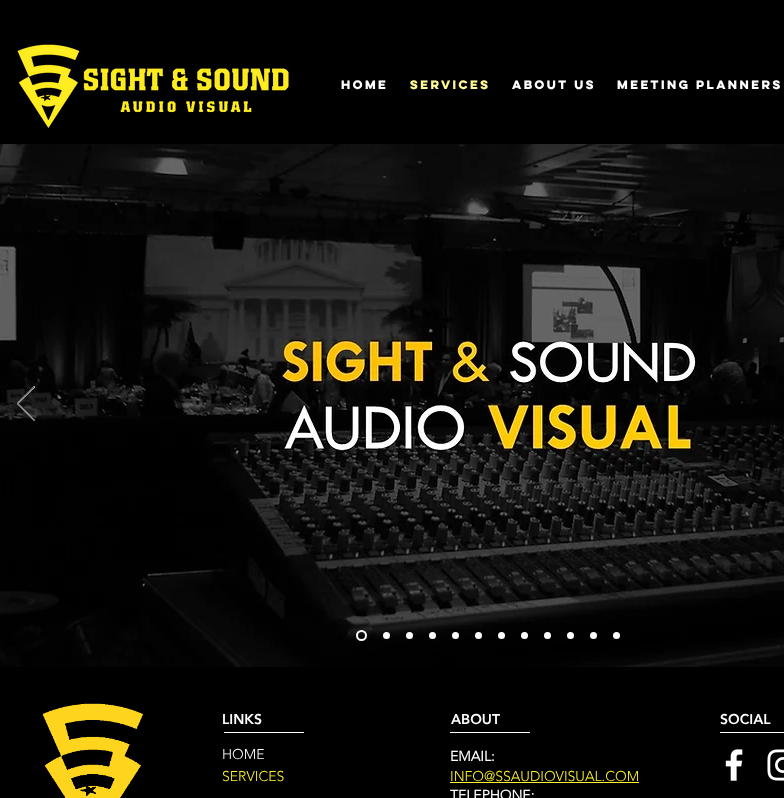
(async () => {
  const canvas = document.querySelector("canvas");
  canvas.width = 784;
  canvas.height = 798;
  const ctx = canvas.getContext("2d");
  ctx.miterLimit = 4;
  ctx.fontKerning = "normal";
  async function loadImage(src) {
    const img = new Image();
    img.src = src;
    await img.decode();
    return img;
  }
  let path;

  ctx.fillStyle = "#000000";
  ctx.fillRect(0, 0, 784, 798);
  ctx.drawImage(await loadImage("img/1.png"), 17, 44, 63, 84);
  ctx.drawImage(await loadImage("img/2.png"), 83, 68, 206, 45);
  ctx.drawImage(await loadImage("img/3.png"), 0, 144, 784, 523);
  ctx.save();
  ctx.beginPath();
  ctx.rect(17, 386, 18, 36);
  ctx.clip();
  path = new Path2D("M34.5 421L17 403.5L34.5 386L35 387L18 403.5L35 420.5Z");
  ctx.strokeStyle = "#cccccc";
  ctx.lineWidth = 0.9;
  ctx.stroke(path);
  ctx.restore();
  ctx.beginPath();
  ctx.arc(361.5, 635.5, 4.5, 0, Math.PI * 2);
  ctx.strokeStyle = "#ffffff";
  ctx.lineWidth = 2;
  ctx.stroke();
  ctx.fillStyle = "#ffffff";
  ctx.beginPath();
  ctx.arc(386.5, 635.5, 3.5, 0, Math.PI * 2);
  ctx.fill();
  ctx.beginPath();
  ctx.arc(409.5, 635.5, 3.5, 0, Math.PI * 2);
  ctx.fill();
  ctx.beginPath();
  ctx.arc(432.5, 635.5, 3.5, 0, Math.PI * 2);
  ctx.fill();
  ctx.beginPath();
  ctx.arc(455.5, 635.5, 3.5, 0, Math.PI * 2);
  ctx.fill();
  ctx.beginPath();
  ctx.arc(478.5, 635.5, 3.5, 0, Math.PI * 2);
  ctx.fill();
  ctx.beginPath();
  ctx.arc(501.5, 635.5, 3.5, 0, Math.PI * 2);
  ctx.fill();
  ctx.beginPath();
  ctx.arc(524.5, 635.5, 3.5, 0, Math.PI * 2);
  ctx.fill();
  ctx.beginPath();
  ctx.arc(547.5, 635.5, 3.5, 0, Math.PI * 2);
  ctx.fill();
  ctx.beginPath();
  ctx.arc(570.5, 635.5, 3.5, 0, Math.PI * 2);
  ctx.fill();
  ctx.beginPath();
  ctx.arc(593.5, 635.5, 3.5, 0, Math.PI * 2);
  ctx.fill();
  ctx.beginPath();
  ctx.arc(616.5, 635.5, 3.5, 0, Math.PI * 2);
  ctx.fill();
  ctx.drawImage(await loadImage("img/4.png"), 42, 703, 102, 95);
  for (const [x, y, w, h, color] of [
    [224, 732, 80, 1, "#ffffff"],
    [450, 732, 80, 1, "#ffffff"],
    [450, 782, 189, 1, "#fff42b"],
    [720, 732, 64, 1, "#ffffff"],
  ]) {
    ctx.fillStyle = color;
    ctx.fillRect(x, y, w, h);
  }
  ctx.drawImage(await loadImage("img/5.png"), 725, 749, 18, 32);
  ctx.drawImage(await loadImage("img/6.png"), 767, 749, 17, 32);
  ctx.font = "bold 11px 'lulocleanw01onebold'";
  ctx.fillText("HOME", 341, 89);
  ctx.fillStyle = "#fffa95";
  ctx.fillText("SERVICES", 410, 89);
  ctx.fillStyle = "#ffffff";
  ctx.fillText("ABOUT US", 512, 89);
  ctx.fillText("MEETING PLANNERS", 617, 89);
  ctx.font = "900 14px 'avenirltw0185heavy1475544'";
  ctx.fillText("LINKS", 222, 724);
  ctx.font = "300 14px 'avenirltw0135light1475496'";
  ctx.fillText("HOME", 222, 759);
  ctx.fillStyle = "#fff42b";
  ctx.fillText("SERVICES", 222, 781);
  ctx.font = "900 14px 'avenirltw0185heavy1475544'";
  ctx.fillStyle = "#ffffff";
  ctx.fillText("ABOUT", 451, 724);
  ctx.font = "bold 14px 'avenirltw0135light1475496'";
  ctx.fillText("EMAIL:", 450, 761);
  ctx.font = "300 14px 'avenirltw0135light1475496'";
  ctx.fillStyle = "#fff42b";
  ctx.fillText("INFO@SSAUDIOVISUAL.COM", 450, 781);
  ctx.font = "bold 14px 'avenirltw0135light1475496'";
  ctx.fillStyle = "#ffffff";
  ctx.fillText("TELEPHONE:", 450, 800);
  ctx.font = "900 14px 'avenirltw0185heavy1475544'";
  ctx.fillText("SOCIAL", 720, 724);
})();
